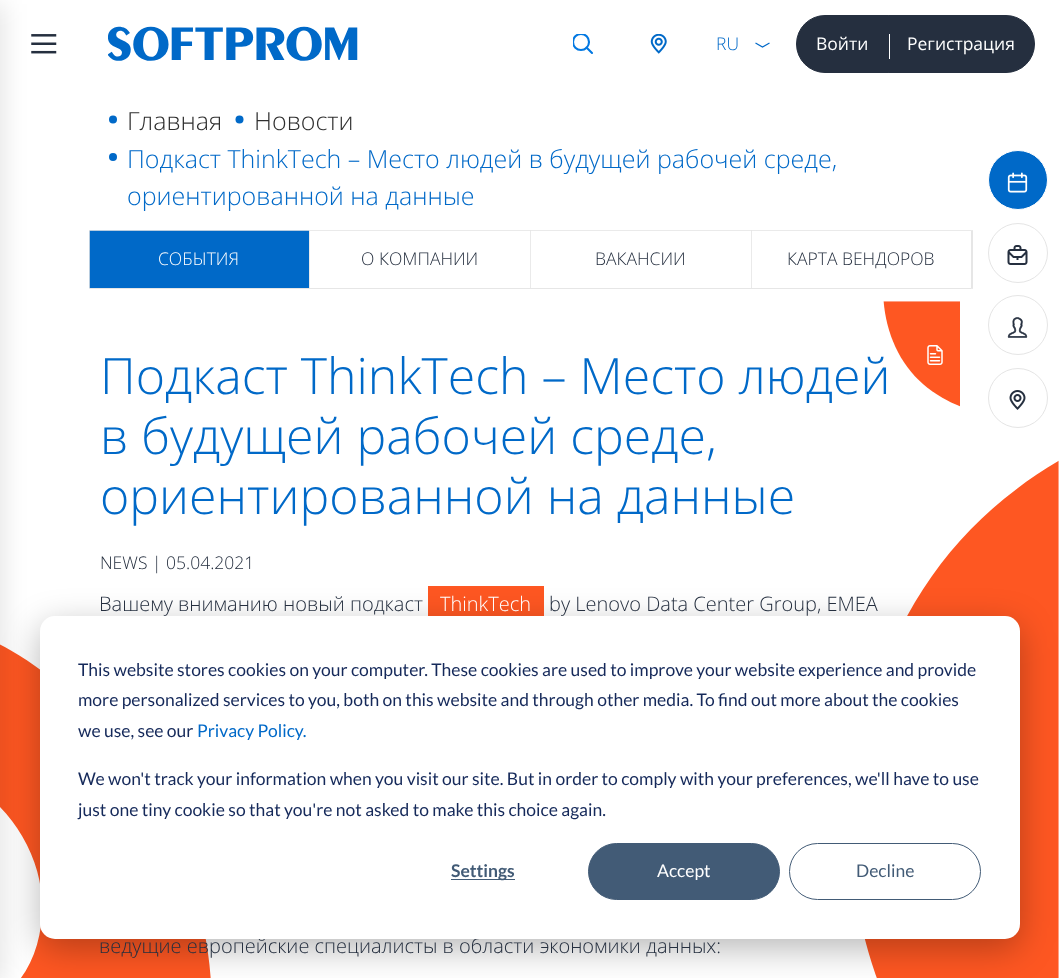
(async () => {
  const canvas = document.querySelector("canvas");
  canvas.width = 1059;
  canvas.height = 978;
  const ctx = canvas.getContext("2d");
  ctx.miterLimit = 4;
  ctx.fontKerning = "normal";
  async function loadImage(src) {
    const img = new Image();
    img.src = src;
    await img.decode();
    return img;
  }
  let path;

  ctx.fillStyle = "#ffffff";
  ctx.fillRect(0, 0, 1059, 978);
  ctx.drawImage(await loadImage("img/1.png"), 31, 34, 26, 20);
  ctx.drawImage(await loadImage("img/11.png"), 0, 644, 211, 334);
  ctx.fillStyle = "rgba(0, 0, 0, 0.1)";
  ctx.filter = "blur(12.5px)";
  ctx.beginPath();
  ctx.rect(-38, 4, 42, 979);
  ctx.fill();
  ctx.filter = "none";
  ctx.drawImage(await loadImage("img/2.png"), 108, 26, 250, 35);
  ctx.save();
  ctx.beginPath();
  ctx.rect(573, 34, 20, 20);
  ctx.clip();
  ctx.beginPath();
  ctx.arc(581, 42, 8, 0, Math.PI * 2);
  ctx.strokeStyle = "#0278e2";
  ctx.lineWidth = 2.1;
  ctx.stroke();
  ctx.restore();
  path = new Path2D("M592 53L586.5 47.5");
  ctx.strokeStyle = "#0278e2";
  ctx.lineWidth = 2.1;
  ctx.lineCap = "round";
  ctx.lineJoin = "round";
  ctx.stroke(path);
  ctx.drawImage(await loadImage("img/3.png"), 650, 34, 17, 20);
  path = new Path2D("M755.5 43L762.5 47L769.5 43");
  ctx.strokeStyle = "#0069c8";
  ctx.lineWidth = 1.2;
  ctx.lineCap = "butt";
  ctx.lineJoin = "miter";
  ctx.stroke(path);
  ctx.fillStyle = "#252f3f";
  ctx.beginPath();
  ctx.roundRect(796.5, 15.5, 92, 57, [28.5, 0, 0, 28.5]);
  ctx.fill();
  ctx.strokeStyle = "#252f3f";
  ctx.lineWidth = 1;
  ctx.stroke();
  ctx.beginPath();
  ctx.roundRect(888.5, 15.5, 146, 57, [0, 28.5, 28.5, 0]);
  ctx.fill();
  ctx.stroke();
  ctx.fillStyle = "#ffffff";
  ctx.fillRect(889, 34, 1, 25);
  ctx.fillStyle = "#0069c8";
  ctx.beginPath();
  ctx.arc(113, 119.5, 4, 0, Math.PI * 2);
  ctx.fill();
  ctx.beginPath();
  ctx.arc(239.5, 119.5, 4, 0, Math.PI * 2);
  ctx.fill();
  ctx.beginPath();
  ctx.arc(113, 157, 4, 0, Math.PI * 2);
  ctx.fill();
  ctx.beginPath();
  ctx.arc(1018, 180, 29.5, 0, Math.PI * 2);
  ctx.fill();
  ctx.strokeStyle = "#ffffff";
  ctx.stroke();
  ctx.drawImage(await loadImage("img/4.png"), 1007, 172, 21, 21);
  ctx.beginPath();
  ctx.arc(1018, 253, 29.5, 0, Math.PI * 2);
  ctx.strokeStyle = "#e5e5e5";
  ctx.stroke();
  ctx.drawImage(await loadImage("img/5.png"), 1007, 245, 21, 20);
  ctx.beginPath();
  ctx.arc(1018, 325, 29.5, 0, Math.PI * 2);
  ctx.stroke();
  ctx.drawImage(await loadImage("img/6.png"), 1007, 317, 21, 21);
  ctx.beginPath();
  ctx.arc(1018, 398, 29.5, 0, Math.PI * 2);
  ctx.stroke();
  ctx.drawImage(await loadImage("img/7.png"), 1009, 390, 17, 20);
  ctx.fillStyle = "#eaeaea";
  path = new Path2D("M90 288V289H310V231H309V288Z");
  ctx.fill(path);
  ctx.fillStyle = "rgba(229, 229, 229, 0.8)";
  path = new Path2D("M89 288V289H309V231V288Z");
  ctx.fill(path);
  for (const [x, y, w, h, color] of [
    [90, 231, 219, 57, "#0069c8"],
    [89, 230, 1, 58, "#b7ccdf"],
    [89, 230, 220, 1, "#b7ccdf"],
    [89, 230, 1, 1, "#dce0e4"],
    [309, 288, 442, 1, "#e6e6e6"],
    [309, 231, 1, 57, "#ffffff"],
    [309, 230, 662, 1, "#eaeaea"],
    [309, 230, 1, 58, "rgba(229, 229, 229, 0.8)"],
    [530, 230, 1, 58, "rgba(229, 229, 229, 0.8)"],
  ]) {
    ctx.fillStyle = color;
    ctx.fillRect(x, y, w, h);
  }
  ctx.fillStyle = "#eaeaea";
  path = new Path2D("M753 288V289H973V231H971V288Z");
  ctx.fill(path);
  ctx.fillStyle = "#e6e6e6";
  path = new Path2D("M751 231V289H971V288H751Z");
  ctx.fill(path);
  ctx.fillStyle = "rgba(229, 229, 229, 0.8)";
  path = new Path2D("M753 288H973V230H971V288Z");
  ctx.fill(path);
  ctx.fillRect(751, 230, 1, 58);
  ctx.fillStyle = "#fe5722";
  ctx.fillRect(428, 586, 116, 30);
  ctx.drawImage(await loadImage("img/10.png"), 865, 460, 194, 518);
  ctx.fillStyle = "rgba(0, 0, 0, 0.28)";
  ctx.filter = "blur(17.5px)";
  ctx.beginPath();
  ctx.roundRect(40, 626, 980, 323, 15);
  ctx.fill();
  ctx.filter = "none";
  ctx.font = "300 17.5px Open Sans";
  ctx.fillStyle = "#0069c8";
  ctx.fillText("RU", 716, 50);
  ctx.font = "17.5px Open Sans";
  ctx.fillStyle = "#ffffff";
  ctx.fillText("Войти", 816, 50);
  ctx.fillText("Регистрация", 907, 50);
  ctx.font = "300 25px Open Sans";
  ctx.fillStyle = "#2f2f2f";
  ctx.fillText("Главная", 127, 130);
  ctx.fillText("Новости", 254, 130);
  ctx.fillStyle = "#0069c8";
  ctx.fillText("Подкаст ThinkTech – Место людей в будущей рабочей среде,", 127, 168);
  ctx.fillText("ориентированной на данные", 127, 205);
  ctx.font = "300 17.5px Open Sans";
  ctx.fillStyle = "#ffffff";
  ctx.fillText("СОБЫТИЯ", 158, 265);
  ctx.fillStyle = "#252f3f";
  for (const [text, x, y] of [
    ["О КОМПАНИИ", 361, 265],
    ["ВАКАНСИИ", 595, 265],
    ["КАРТА ВЕНДОРОВ", 787, 265],
  ]) {
    ctx.fillText(text, x, y);
  }
  ctx.font = "300 50px Open Sans";
  ctx.fillStyle = "#0069c8";
  for (const [text, x, y] of [
    ["Подкаст ThinkTech – Место людей", 100, 394],
    ["в будущей рабочей среде,", 100, 454],
    ["ориентированной на данные", 100, 514],
  ]) {
    ctx.fillText(text, x, y);
  }
  ctx.drawImage(await loadImage("img/8.png"), 883, 301, 77, 106);
  ctx.drawImage(await loadImage("img/9.png"), 927, 345, 16, 20);
  ctx.font = "300 17.5px Open Sans";
  ctx.fillStyle = "#252f3f";
  ctx.fillText("NEWS | 05.04.2021", 100, 569);
  ctx.font = "300 20px Open Sans";
  ctx.fillText("Вашему вниманию новый подкаст", 99, 611);
  ctx.fillStyle = "#ffffff";
  ctx.fillText("ThinkTech", 440, 611);
  ctx.fillStyle = "#252f3f";
  ctx.fillText("by Lenovo Data Center Group, EMEA", 549, 611);
  ctx.fillText("ведущие европейские специалисты в области экономики данных:", 99, 953);
  ctx.fillStyle = "#ffffff";
  ctx.beginPath();
  ctx.roundRect(40, 616, 980, 323, 15);
  ctx.fill();
  ctx.font = "17.5px Lato";
  ctx.fillStyle = "#15295a";
  for (const [text, x, y] of [
    ["This website stores cookies on your computer. These cookies are used to improve your website experience and provide", 78, 676],
    ["more personalized services to you, both on this website and through other media. To find out more about the cookies", 78, 706],
    ["we use, see our", 78, 737],
  ]) {
    ctx.fillText(text, x, y);
  }
  ctx.fillStyle = "#0069c8";
  ctx.fillText("Privacy Policy.", 197, 737);
  ctx.fillStyle = "#15295a";
  ctx.fillText("We won't track your information when you visit our site. But in order to comply with your preferences, we'll have to use", 78, 785);
  ctx.fillText("just one tiny cookie so that you're not asked to make this choice again.", 78, 816);
  ctx.fillStyle = "#425b76";
  ctx.fillRect(451, 879, 64, 1);
  ctx.font = "bold 17.5px Lato";
  ctx.fillText("Settings", 451, 877);
  ctx.beginPath();
  ctx.roundRect(588.5, 843.5, 191, 56, 28);
  ctx.fill();
  ctx.strokeStyle = "#425b76";
  ctx.stroke();
  ctx.font = "17.5px Lato";
  ctx.fillStyle = "#ffffff";
  ctx.fillText("Accept", 657, 877);
  ctx.beginPath();
  ctx.roundRect(789.5, 843.5, 191, 56, 28);
  ctx.stroke();
  ctx.fillStyle = "#425b76";
  ctx.fillText("Decline", 856, 877);
})();
